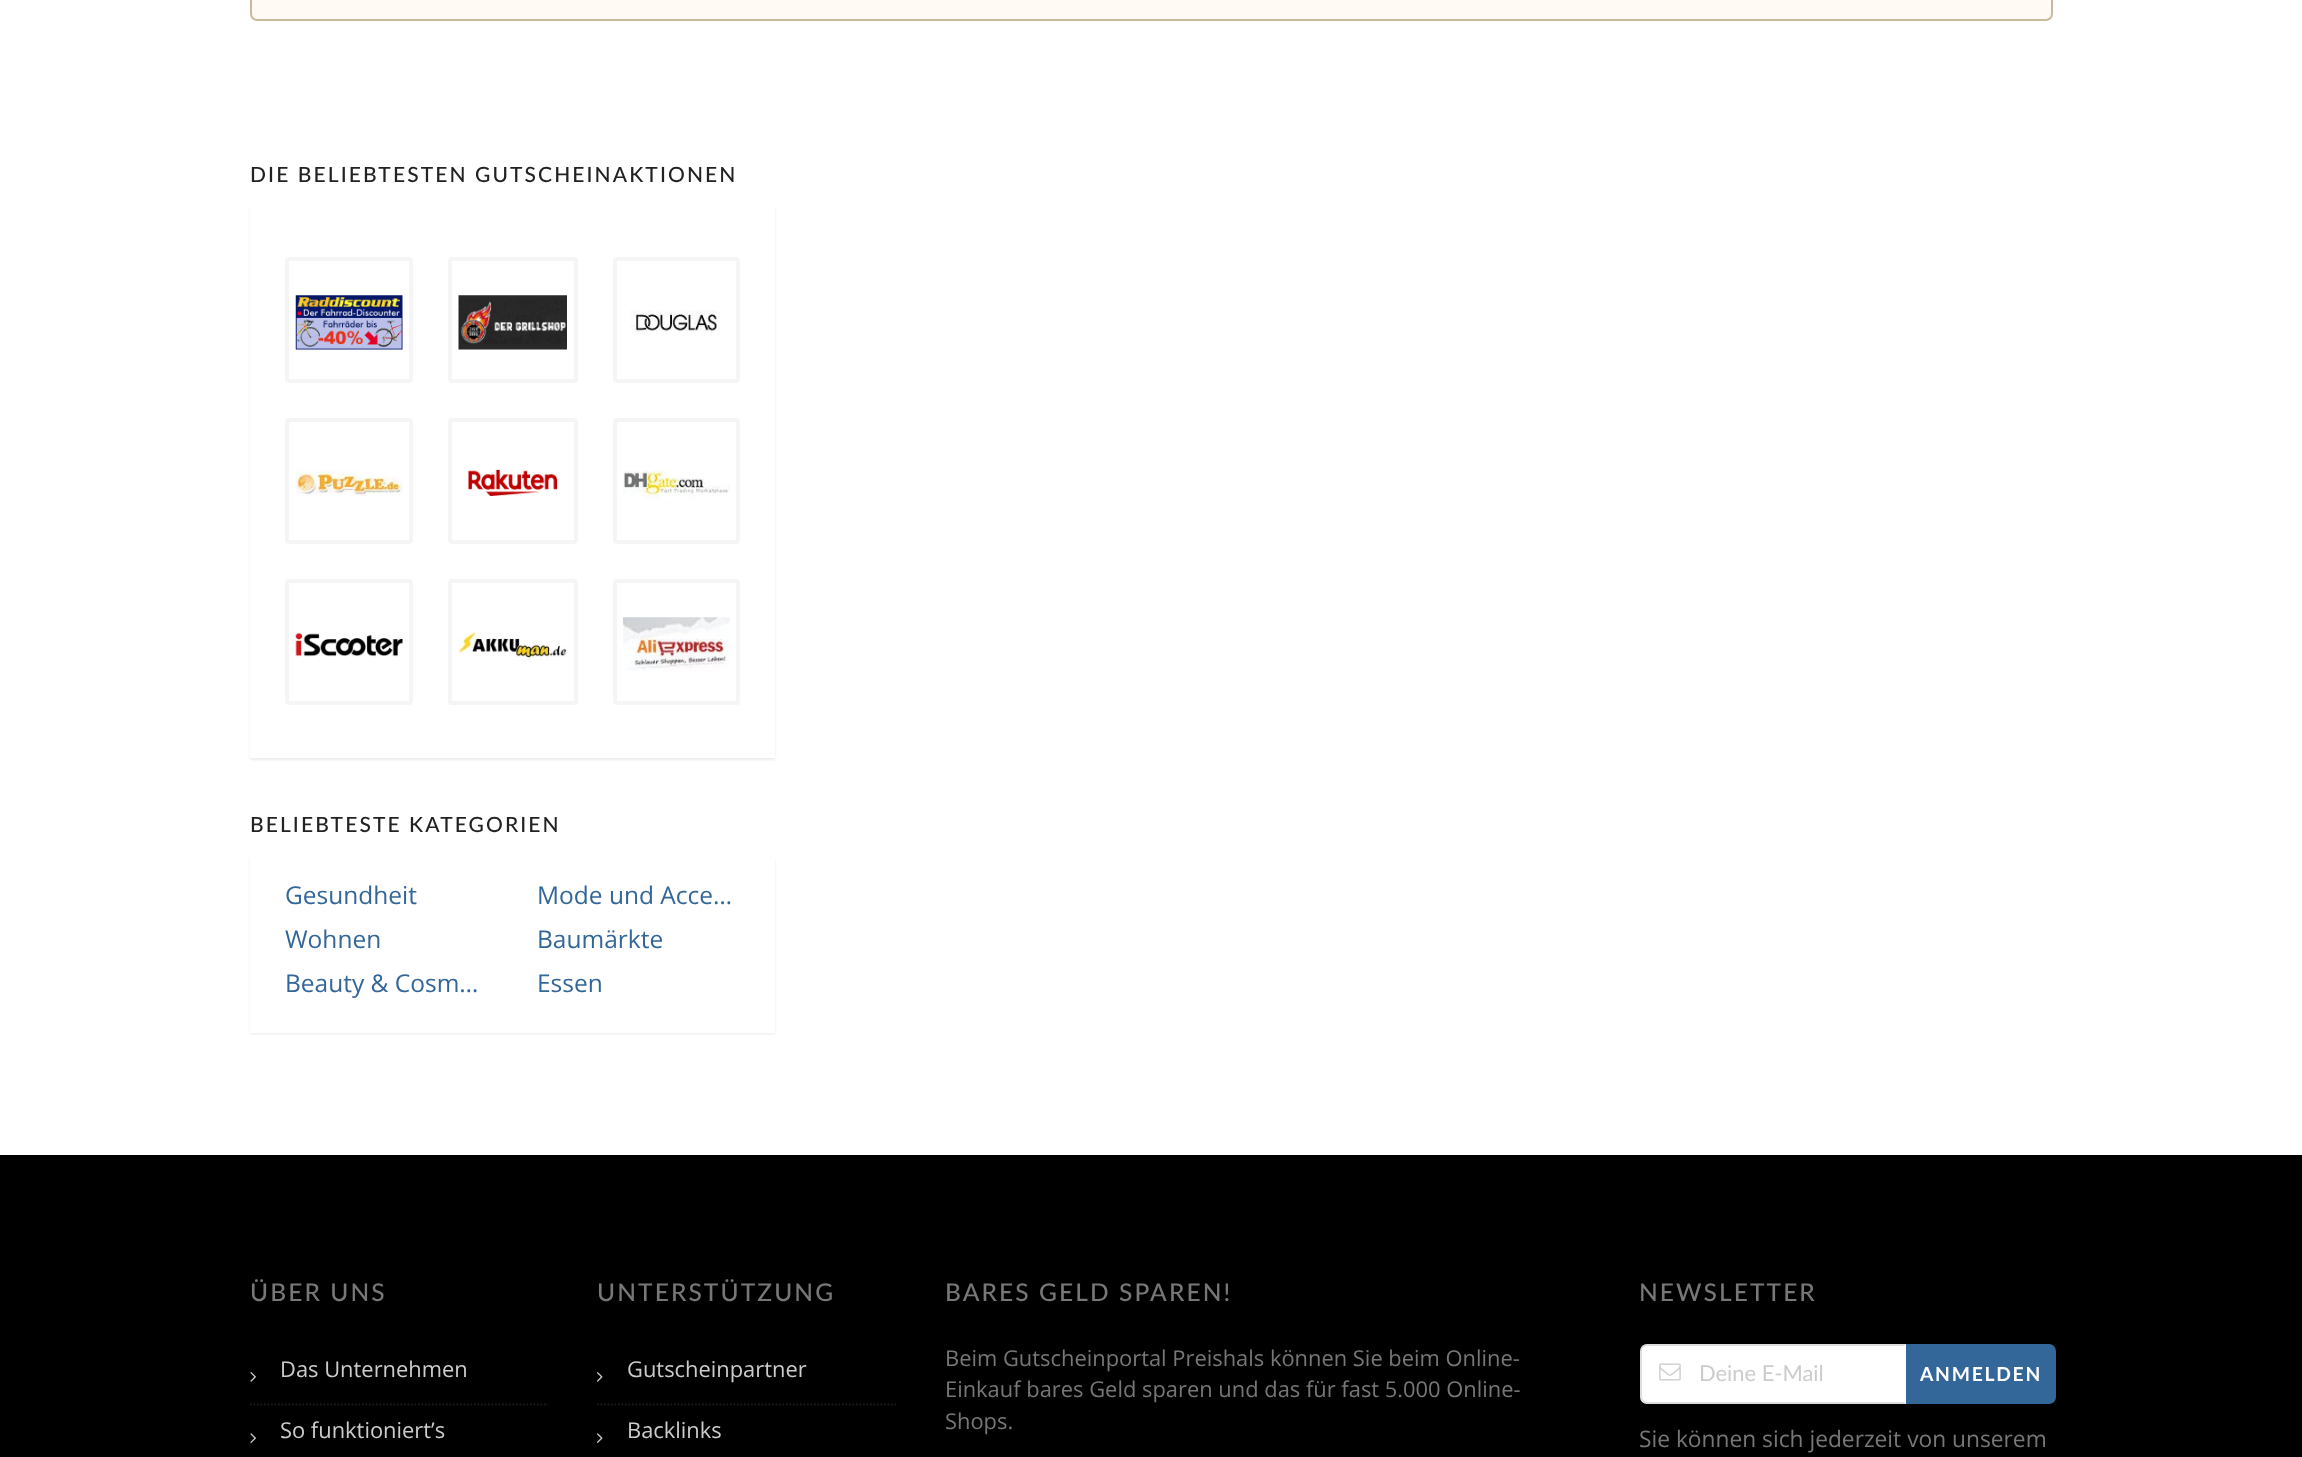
(async () => {
  const canvas = document.querySelector("canvas");
  canvas.width = 2302;
  canvas.height = 1457;
  const ctx = canvas.getContext("2d");
  ctx.miterLimit = 4;
  ctx.fontKerning = "normal";
  async function loadImage(src) {
    const img = new Image();
    img.src = src;
    await img.decode();
    return img;
  }
  let path;

  ctx.fillStyle = "#ffffff";
  ctx.fillRect(0, 0, 2302, 1457);
  ctx.fillStyle = "#fffaf3";
  ctx.beginPath();
  ctx.roundRect(251, -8, 1801, 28, 6);
  ctx.fill();
  ctx.strokeStyle = "#c9ba9b";
  ctx.lineWidth = 2;
  ctx.stroke();
  ctx.fillStyle = "rgba(0, 0, 0, 0.08)";
  ctx.filter = "blur(1px)";
  ctx.beginPath();
  ctx.rect(250, 207, 525, 553);
  ctx.fill();
  ctx.filter = "none";
  ctx.fillStyle = "#ffffff";
  ctx.fillRect(250, 206, 525, 552);
  ctx.beginPath();
  ctx.roundRect(287, 259, 124, 122, 2);
  ctx.strokeStyle = "#f5f5f5";
  ctx.lineWidth = 4;
  ctx.stroke();
  ctx.drawImage(await loadImage("img/1.png"), 295, 295, 108, 55);
  ctx.beginPath();
  ctx.roundRect(450, 259, 126, 122, 2);
  ctx.stroke();
  ctx.drawImage(await loadImage("img/2.png"), 458, 295, 109, 55);
  ctx.beginPath();
  ctx.roundRect(615, 259, 123, 122, 2);
  ctx.stroke();
  ctx.drawImage(await loadImage("img/3.png"), 630, 310, 90, 22);
  ctx.beginPath();
  ctx.roundRect(287, 420, 124, 122, 2);
  ctx.stroke();
  ctx.drawImage(await loadImage("img/4.png"), 295, 469, 108, 27);
  ctx.beginPath();
  ctx.roundRect(450, 420, 126, 122, 2);
  ctx.stroke();
  ctx.drawImage(await loadImage("img/5.png"), 468, 469, 90, 27);
  ctx.beginPath();
  ctx.roundRect(615, 420, 123, 122, 2);
  ctx.stroke();
  ctx.drawImage(await loadImage("img/6.png"), 623, 470, 107, 30);
  ctx.beginPath();
  ctx.roundRect(287, 581, 124, 122, 2);
  ctx.stroke();
  ctx.drawImage(await loadImage("img/7.png"), 295, 632, 108, 25);
  ctx.beginPath();
  ctx.roundRect(450, 581, 126, 122, 2);
  ctx.stroke();
  ctx.drawImage(await loadImage("img/8.png"), 458, 631, 109, 30);
  ctx.beginPath();
  ctx.roundRect(615, 581, 123, 122, 2);
  ctx.stroke();
  ctx.drawImage(await loadImage("img/9.png"), 623, 617, 107, 54);
  ctx.fillStyle = "rgba(0, 0, 0, 0.08)";
  ctx.filter = "blur(1px)";
  ctx.beginPath();
  ctx.rect(250, 858, 525, 176);
  ctx.fill();
  ctx.filter = "none";
  ctx.fillStyle = "#ffffff";
  ctx.fillRect(250, 857, 525, 176);
  ctx.fillStyle = "#000000";
  ctx.fillRect(0, 1155, 2302, 302);
  path = new Path2D("M250 1404.5H548");
  ctx.strokeStyle = "#1a1a1a";
  ctx.lineWidth = 1.8;
  ctx.setLineDash([1.75, 1.75]);
  ctx.stroke(path);
  ctx.drawImage(await loadImage("img/10.png"), 250, 1372, 6, 10);
  ctx.drawImage(await loadImage("img/11.png"), 250, 1433, 6, 10);
  path = new Path2D("M597 1404.5H896");
  ctx.stroke(path);
  ctx.drawImage(await loadImage("img/12.png"), 596, 1372, 7, 10);
  ctx.drawImage(await loadImage("img/13.png"), 596, 1433, 7, 10);
  ctx.fillStyle = "#ffffff";
  ctx.beginPath();
  ctx.roundRect(1640, 1344, 266, 60, [7, 0, 0, 7]);
  ctx.fill();
  ctx.drawImage(await loadImage("img/14.png"), 1659, 1363, 22, 18);
  ctx.fillStyle = "rgba(34, 36, 38, 0.15)";
  path = new Path2D("M1647 1344C1645 1344 1643 1345 1642 1346L1643 1348C1644 1347 1645 1346 1647 1346H1904L1906 1344Z");
  ctx.fill(path);
  path = new Path2D("M1906 1404H1645L1642 1401L1643 1400C1644 1401 1645 1402 1647 1402H1904Z");
  ctx.fill(path);
  path = new Path2D("M1642 1346C1641 1347 1640 1349 1640 1351V1396C1640 1398 1641 1400 1642 1401L1643 1400C1642 1399 1642 1397 1642 1396V1351C1642 1350 1642 1348 1643 1348Z");
  ctx.fill(path);
  ctx.fillStyle = "#336699";
  ctx.beginPath();
  ctx.roundRect(1906, 1344, 150, 60, [0, 7, 7, 0]);
  ctx.fill();
  ctx.letterSpacing = "2.1px";
  ctx.font = "500 21px Lato";
  ctx.fillStyle = "#222222";
  ctx.fillText("DIE BELIEBTESTEN GUTSCHEINAKTIONEN", 250, 182);
  ctx.fillText("BELIEBTESTE KATEGORIEN", 250, 832);
  ctx.letterSpacing = "0px";
  ctx.font = "24.5px Open Sans";
  ctx.fillStyle = "#336699";
  for (const [text, x, y] of [
    ["Gesundheit", 285, 904],
    ["Mode und Acce…", 537, 904],
    ["Wohnen", 285, 948],
    ["Baumärkte", 537, 948],
    ["Beauty & Cosm…", 285, 992],
    ["Essen", 537, 992],
  ]) {
    ctx.fillText(text, x, y);
  }
  ctx.letterSpacing = "2.1px";
  ctx.font = "500 24.5px Lato";
  ctx.fillStyle = "#777777";
  ctx.fillText("ÜBER UNS", 250, 1301);
  ctx.letterSpacing = "0px";
  ctx.font = "21.9px Open Sans";
  ctx.fillStyle = "#cccccc";
  ctx.fillText("Das Unternehmen", 280, 1377);
  ctx.fillText("So funktioniert’s", 280, 1438);
  ctx.letterSpacing = "2.1px";
  ctx.font = "500 24.5px Lato";
  ctx.fillStyle = "#777777";
  ctx.fillText("UNTERSTÜTZUNG", 597, 1301);
  ctx.letterSpacing = "0px";
  ctx.font = "21.9px Open Sans";
  ctx.fillStyle = "#cccccc";
  ctx.fillText("Gutscheinpartner", 627, 1377);
  ctx.fillText("Backlinks", 627, 1438);
  ctx.letterSpacing = "2.1px";
  ctx.font = "500 24.5px Lato";
  ctx.fillStyle = "#777777";
  ctx.fillText("BARES GELD SPAREN!", 945, 1301);
  ctx.letterSpacing = "0px";
  ctx.font = "21.9px Open Sans";
  for (const [text, x, y] of [
    ["Beim Gutscheinportal Preishals können Sie beim Online-", 945, 1366],
    ["Einkauf bares Geld sparen und das für fast 5.000 Online-", 945, 1397],
    ["Shops.", 945, 1429],
  ]) {
    ctx.fillText(text, x, y);
  }
  ctx.letterSpacing = "2.1px";
  ctx.font = "500 24.5px Lato";
  ctx.fillText("NEWSLETTER", 1639, 1301);
  ctx.letterSpacing = "0px";
  ctx.font = "21.9px Lato";
  ctx.fillStyle = "#cccccc";
  ctx.fillText("Deine E-Mail", 1699, 1381);
  ctx.letterSpacing = "1.75px";
  ctx.font = "bold 19.25px Lato";
  ctx.fillStyle = "#ffffff";
  ctx.fillText("ANMELDEN", 1920, 1381);
  ctx.letterSpacing = "0px";
  ctx.font = "22.75px Open Sans";
  ctx.fillStyle = "#777777";
  ctx.fillText("Sie können sich jederzeit von unserem", 1639, 1447);
})();
